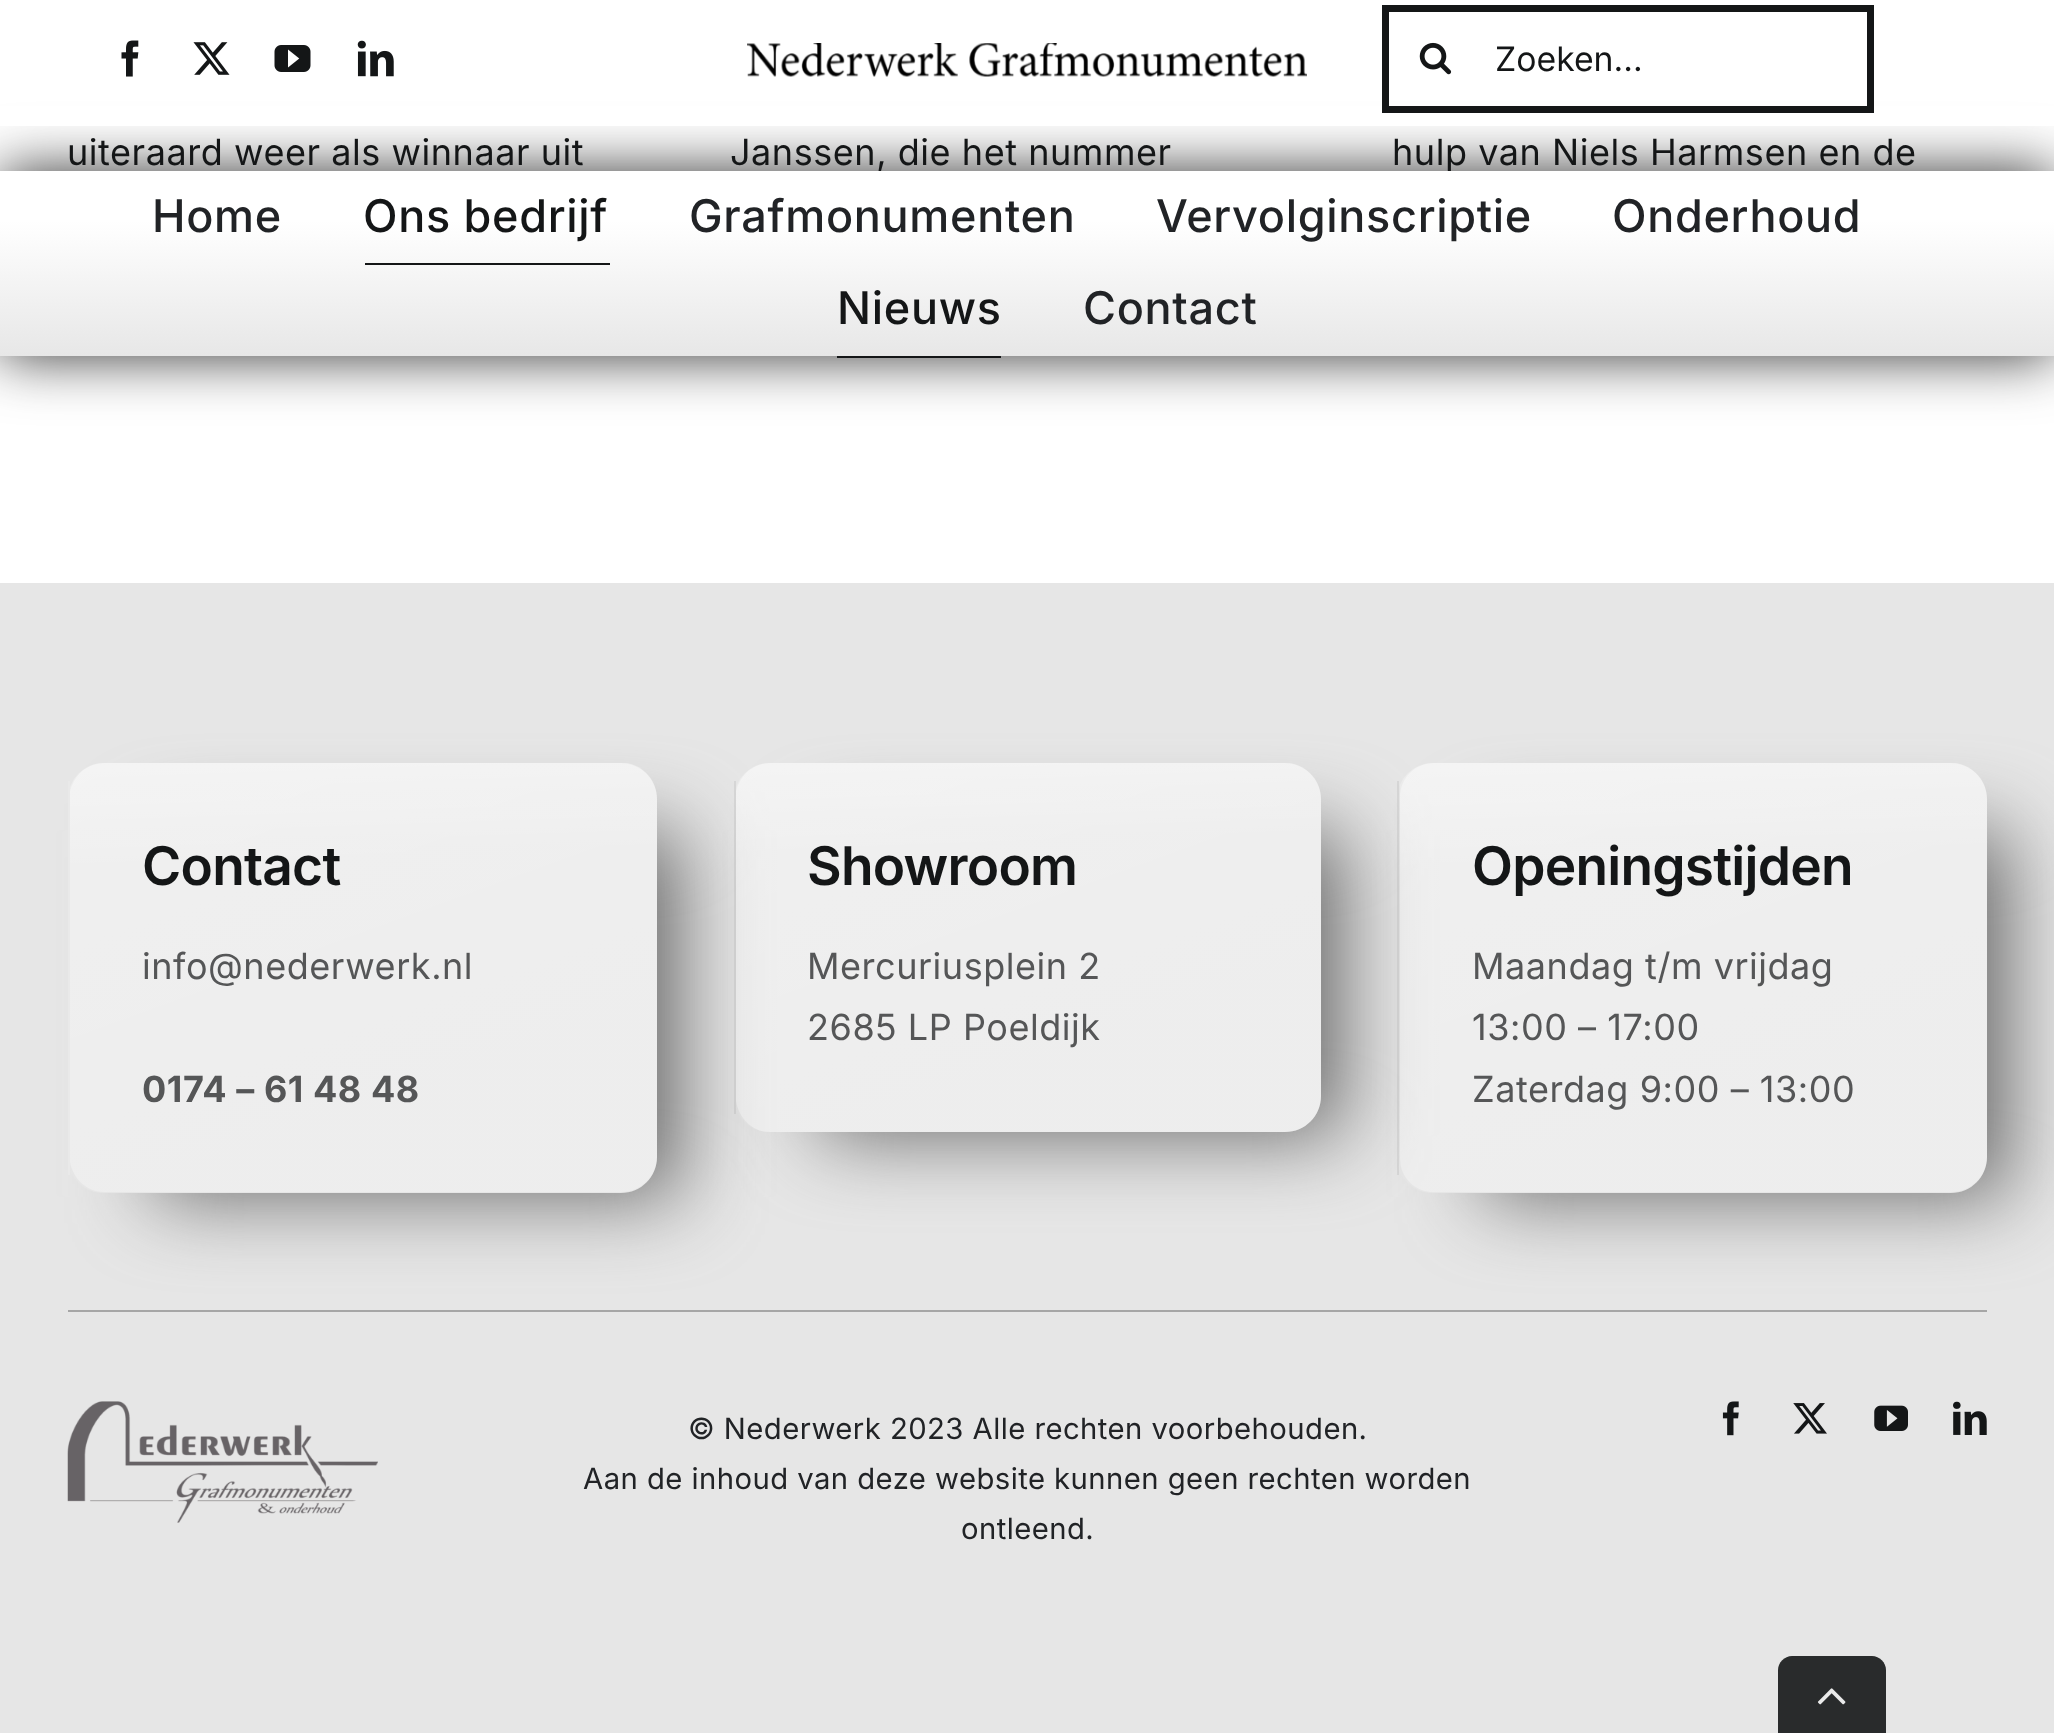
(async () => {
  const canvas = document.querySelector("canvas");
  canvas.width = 2054;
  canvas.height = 1733;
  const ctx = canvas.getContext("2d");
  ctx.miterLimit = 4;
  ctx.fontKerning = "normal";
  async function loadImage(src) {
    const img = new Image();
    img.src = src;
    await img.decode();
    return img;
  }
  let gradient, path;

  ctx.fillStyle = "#ffffff";
  ctx.fillRect(0, 0, 2054, 1733);
  ctx.fillStyle = "#333333";
  ctx.filter = "blur(29px)";
  ctx.beginPath();
  ctx.rect(0, 171, 2054, 185);
  ctx.fill();
  ctx.filter = "none";
  ctx.fillStyle = "#ffffff";
  ctx.fillRect(0, 106, 2054, 20);
  ctx.drawImage(await loadImage("img/1.png"), 121, 40, 18, 37);
  ctx.drawImage(await loadImage("img/2.png"), 193, 42, 37, 33);
  ctx.drawImage(await loadImage("img/3.png"), 274, 45, 37, 27);
  ctx.drawImage(await loadImage("img/4.png"), 357, 40, 37, 37);
  ctx.drawImage(await loadImage("img/5.png"), 747, 43, 560, 34);
  ctx.strokeStyle = "#141617";
  ctx.lineWidth = 7;
  ctx.strokeRect(1385.5, 8.5, 485, 101);
  ctx.drawImage(await loadImage("img/6.png"), 1419, 42, 33, 33);
  ctx.fillStyle = "#141617";
  ctx.fillRect(837, 356, 164, 2);
  ctx.fillStyle = "#e6e6e6";
  ctx.fillRect(0, 583, 2054, 1150);
  ctx.save();
  path = new Path2D("M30 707H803V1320H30ZM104 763H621C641 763 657 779 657 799V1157C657 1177 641 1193 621 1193H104C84 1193 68 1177 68 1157V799C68 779 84 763 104 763Z");
  ctx.clip(path, "evenodd");
  ctx.fillStyle = "#6b6b6b";
  ctx.filter = "blur(40.5px)";
  ctx.beginPath();
  ctx.roundRect(153, 830, 527, 367, 5);
  ctx.fill();
  ctx.filter = "none";
  ctx.restore();
  ctx.save();
  ctx.beginPath();
  ctx.roundRect(68, 763, 589, 430, 36);
  ctx.clip();
  gradient = ctx.createLinearGradient(356, 753, 371, 1202);
  gradient.addColorStop(0.02, "rgba(255, 255, 255, 0.28)");
  gradient.addColorStop(0.24, "rgba(255, 255, 255, 0)");
  ctx.fillStyle = gradient;
  ctx.beginPath();
  ctx.roundRect(70, 763, 587, 430, [0, 36, 36, 0]);
  ctx.fill();
  ctx.restore();
  ctx.fillStyle = "#e9e9e9";
  ctx.fillRect(68, 781, 2, 394);
  gradient = ctx.createLinearGradient(260, 694, 467, 1262);
  gradient.addColorStop(0, "rgba(255, 255, 255, 0.4)");
  gradient.addColorStop(0.7, "rgba(255, 255, 255, 0.3)");
  ctx.fillStyle = gradient;
  path = new Path2D("M104 763H627C644 766 657 781 657 799V1156C657 1176 641 1192 621 1192H104C87 1192 73 1179 70 1162V797V791C72 784 75 778 80 773C86 767 95 763 104 763Z");
  ctx.fill(path);
  ctx.save();
  path = new Path2D("M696 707H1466V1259H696ZM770 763H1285C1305 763 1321 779 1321 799V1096C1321 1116 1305 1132 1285 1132H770C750 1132 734 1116 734 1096V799C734 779 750 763 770 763Z");
  ctx.clip(path, "evenodd");
  ctx.fillStyle = "#6b6b6b";
  ctx.filter = "blur(40.5px)";
  ctx.beginPath();
  ctx.roundRect(819, 830, 524, 306, 5);
  ctx.fill();
  ctx.filter = "none";
  ctx.restore();
  ctx.save();
  ctx.beginPath();
  ctx.roundRect(734, 763, 587, 369, 36);
  ctx.clip();
  gradient = ctx.createLinearGradient(1021, 753, 1035, 1142);
  gradient.addColorStop(0.02, "rgba(255, 255, 255, 0.28)");
  gradient.addColorStop(0.24, "rgba(255, 255, 255, 0)");
  ctx.fillStyle = gradient;
  ctx.beginPath();
  ctx.roundRect(736, 763, 585, 369, [0, 36, 36, 0]);
  ctx.fill();
  ctx.restore();
  ctx.fillStyle = "rgba(107, 107, 107, 0.12)";
  ctx.fillRect(734, 781, 2, 333);
  gradient = ctx.createLinearGradient(935, 690, 1122, 1204);
  gradient.addColorStop(0, "rgba(255, 255, 255, 0.4)");
  gradient.addColorStop(0.7, "rgba(255, 255, 255, 0.3)");
  ctx.fillStyle = gradient;
  path = new Path2D("M770 763H1290C1307 766 1321 781 1321 799V1096C1321 1116 1305 1132 1285 1132H770C753 1132 739 1119 736 1101V797V791C738 784 741 778 746 773C752 767 761 763 770 763Z");
  ctx.fill(path);
  ctx.save();
  path = new Path2D("M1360 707H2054V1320H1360ZM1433 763H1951C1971 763 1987 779 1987 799V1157C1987 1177 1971 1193 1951 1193H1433C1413 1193 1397 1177 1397 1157V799C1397 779 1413 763 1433 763Z");
  ctx.clip(path, "evenodd");
  ctx.fillStyle = "#6b6b6b";
  ctx.filter = "blur(40.5px)";
  ctx.beginPath();
  ctx.roundRect(1483, 830, 526, 367, 5);
  ctx.fill();
  ctx.filter = "none";
  ctx.restore();
  ctx.save();
  ctx.beginPath();
  ctx.roundRect(1397, 763, 590, 430, 36);
  ctx.clip();
  gradient = ctx.createLinearGradient(1685, 753, 1701, 1202);
  gradient.addColorStop(0.02, "rgba(255, 255, 255, 0.28)");
  gradient.addColorStop(0.24, "rgba(255, 255, 255, 0)");
  ctx.fillStyle = gradient;
  ctx.beginPath();
  ctx.roundRect(1400, 763, 587, 430, [0, 36, 36, 0]);
  ctx.fill();
  ctx.restore();
  ctx.fillStyle = "rgba(107, 107, 107, 0.12)";
  ctx.fillRect(1397, 781, 2, 394);
  gradient = ctx.createLinearGradient(1590, 694, 1797, 1262);
  gradient.addColorStop(0, "rgba(255, 255, 255, 0.4)");
  gradient.addColorStop(0.7, "rgba(255, 255, 255, 0.3)");
  ctx.fillStyle = gradient;
  path = new Path2D("M1434 763H1956C1973 766 1987 781 1987 799V1156C1987 1176 1971 1192 1951 1192H1433C1418 1192 1405 1182 1401 1167L1400 1159V797C1400 778 1415 763 1434 763Z");
  ctx.fill(path);
  ctx.fillStyle = "#a6a6a6";
  ctx.fillRect(68, 1310, 1919, 2);
  ctx.drawImage(await loadImage("img/7.png"), 67, 1401, 311, 122);
  ctx.drawImage(await loadImage("img/8.png"), 1722, 1401, 17, 35);
  ctx.drawImage(await loadImage("img/9.png"), 1793, 1403, 34, 31);
  ctx.drawImage(await loadImage("img/10.png"), 1874, 1405, 34, 26);
  ctx.drawImage(await loadImage("img/11.png"), 1953, 1401, 34, 34);
  ctx.fillStyle = "#292b2c";
  path = new Path2D("M1792 1656H1872C1879.5 1656 1886 1662.5 1886 1670V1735H1778V1670C1778 1662.5 1784.5 1656 1792 1656Z");
  ctx.fill(path);
  ctx.drawImage(await loadImage("img/12.png"), 1817, 1688, 29, 17);
  ctx.font = "33.75px Inter";
  ctx.fillStyle = "#141617";
  ctx.fillText("Zoeken...", 1495, 71);
  ctx.letterSpacing = "0.55px";
  ctx.font = "36px Inter";
  for (const [text, x, y] of [
    ["uiteraard weer als winnaar uit", 67, 165],
    ["Janssen, die het nummer", 730, 165],
    ["hulp van Niels Harmsen en de", 1392, 165],
  ]) {
    ctx.fillText(text, x, y);
  }
  gradient = ctx.createLinearGradient(1027, 171, 1027, 356);
  gradient.addColorStop(0.27, "#ffffff");
  gradient.addColorStop(1, "#e7e7e7");
  ctx.fillStyle = gradient;
  ctx.fillRect(0, 171, 2054, 185);
  ctx.letterSpacing = "0.7px";
  ctx.font = "500 45px Inter";
  ctx.fillStyle = "#212326";
  ctx.fillText("Contact", 1083, 324);
  ctx.fillStyle = "#141617";
  ctx.fillText("Nieuws", 837, 324);
  ctx.fillStyle = "#212326";
  for (const [text, x, y] of [
    ["Onderhoud", 1612, 232],
    ["Vervolginscriptie", 1156, 232],
    ["Grafmonumenten", 689, 232],
  ]) {
    ctx.fillText(text, x, y);
  }
  ctx.fillStyle = "#141617";
  ctx.fillText("Ons bedrijf", 363, 232);
  ctx.fillStyle = "#212326";
  ctx.fillText("Home", 152, 232);
  ctx.fillStyle = "#141617";
  ctx.fillRect(365, 263, 245, 2);
  ctx.letterSpacing = "-0.75px";
  ctx.font = "600 53.25px Inter";
  ctx.fillText("Contact", 142, 885);
  ctx.letterSpacing = "0.55px";
  ctx.font = "36px Inter";
  ctx.fillStyle = "#555657";
  ctx.fillText("info@nederwerk.nl", 142, 979);
  ctx.font = "bold 36px Inter";
  ctx.fillText("0174 – 61 48 48", 142, 1102);
  ctx.letterSpacing = "-0.75px";
  ctx.font = "600 53.25px Inter";
  ctx.fillStyle = "#141617";
  ctx.fillText("Showroom", 807, 885);
  ctx.letterSpacing = "0.55px";
  ctx.font = "36px Inter";
  ctx.fillStyle = "#555657";
  ctx.fillText("Mercuriusplein 2", 807, 979);
  ctx.fillText("2685 LP Poeldijk", 807, 1040);
  ctx.letterSpacing = "-0.75px";
  ctx.font = "600 53.25px Inter";
  ctx.fillStyle = "#141617";
  ctx.fillText("Openingstijden", 1472, 885);
  ctx.letterSpacing = "0.55px";
  ctx.font = "36px Inter";
  ctx.fillStyle = "#555657";
  for (const [text, x, y] of [
    ["Maandag t/m vrijdag", 1472, 979],
    ["13:00 – 17:00", 1472, 1040],
    ["Zaterdag 9:00 – 13:00", 1472, 1102],
  ]) {
    ctx.fillText(text, x, y);
  }
  ctx.letterSpacing = "0.45px";
  ctx.font = "29.25px Inter";
  ctx.fillStyle = "#212326";
  for (const [text, x, y] of [
    ["© Nederwerk 2023 Alle rechten voorbehouden.", 688, 1439],
    ["Aan de inhoud van deze website kunnen geen rechten worden", 583, 1489],
    ["ontleend.", 961, 1539],
  ]) {
    ctx.fillText(text, x, y);
  }
})();
